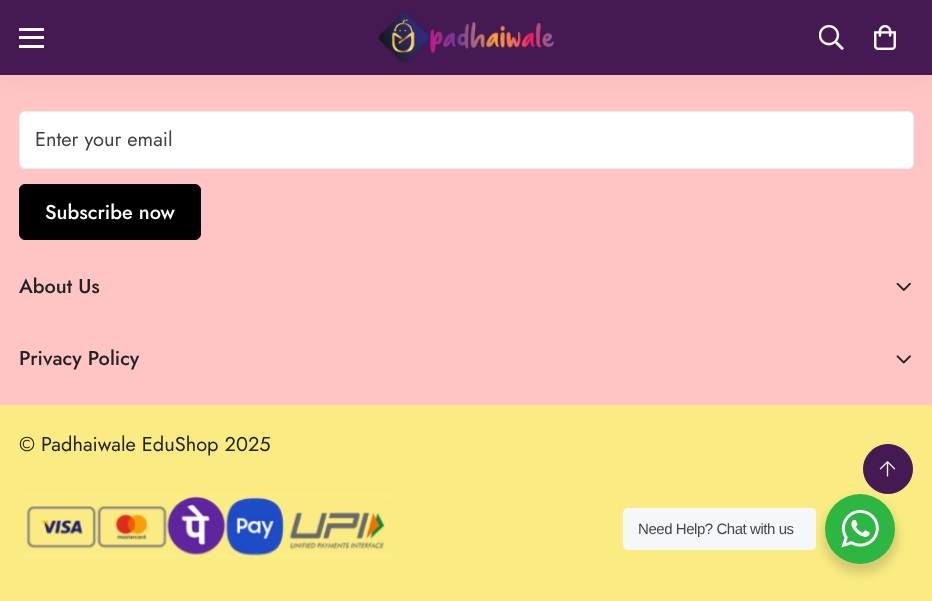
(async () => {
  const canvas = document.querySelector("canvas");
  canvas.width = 932;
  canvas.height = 601;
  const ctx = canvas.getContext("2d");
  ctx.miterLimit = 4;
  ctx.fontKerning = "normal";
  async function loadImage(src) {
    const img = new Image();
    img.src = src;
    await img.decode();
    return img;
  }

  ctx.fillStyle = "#ffc5c5";
  ctx.fillRect(0, 0, 932, 601);
  ctx.fillStyle = "#ffffff";
  ctx.beginPath();
  ctx.roundRect(19.5, 111.5, 894, 57, 5.5);
  ctx.fill();
  ctx.strokeStyle = "#eeeeee";
  ctx.stroke();
  ctx.fillStyle = "rgba(0, 0, 0, 0.04)";
  ctx.filter = "blur(12.5px)";
  ctx.beginPath();
  ctx.rect(0, 5, 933, 75);
  ctx.fill();
  ctx.filter = "none";
  for (const [x, y, w, h, color] of [
    [0, 0, 932, 75, "#451952"],
    [19, 36, 25, 3, "#ffffff"],
    [19, 28, 25, 3, "#ffffff"],
    [19, 45, 25, 3, "#ffffff"],
  ]) {
    ctx.fillStyle = color;
    ctx.fillRect(x, y, w, h);
  }
  ctx.drawImage(await loadImage("img/1.png"), 378, 12, 176, 51);
  ctx.drawImage(await loadImage("img/2.png"), 819, 25, 25, 25);
  ctx.drawImage(await loadImage("img/3.png"), 874, 25, 22, 25);
  ctx.fillStyle = "#000000";
  ctx.beginPath();
  ctx.roundRect(19.5, 184.5, 181, 55, 5.5);
  ctx.fill();
  ctx.strokeStyle = "#000000";
  ctx.stroke();
  ctx.drawImage(await loadImage("img/4.png"), 896, 282, 15, 9);
  ctx.drawImage(await loadImage("img/5.png"), 896, 355, 15, 9);
  ctx.fillStyle = "#faec83";
  ctx.fillRect(0, 405, 932, 196);
  ctx.drawImage(await loadImage("img/6.png"), 19, 495, 375, 62);
  ctx.fillStyle = "#451952";
  ctx.beginPath();
  ctx.arc(888, 469, 24.5, 0, Math.PI * 2);
  ctx.fill();
  ctx.strokeStyle = "#451952";
  ctx.stroke();
  ctx.drawImage(await loadImage("img/7.png"), 879, 461, 17, 16);
  ctx.fillStyle = "rgba(0, 0, 0, 0.14)";
  ctx.filter = "blur(5px)";
  ctx.beginPath();
  ctx.roundRect(823, 499, 75, 75, 37.5);
  ctx.fill();
  ctx.filter = "none";
  ctx.fillStyle = "#f5f7f9";
  ctx.beginPath();
  ctx.roundRect(623, 508, 193, 42, 5);
  ctx.fill();
  ctx.fillStyle = "#2db742";
  ctx.beginPath();
  ctx.arc(860, 529, 35, 0, Math.PI * 2);
  ctx.fill();
  ctx.drawImage(await loadImage("img/8.png"), 841, 510, 38, 38);
  ctx.font = "20px Jost";
  ctx.fillStyle = "#404040";
  ctx.fillText("Enter your email", 35, 146);
  ctx.font = "500 20px Jost";
  ctx.fillStyle = "#ffffff";
  ctx.fillText("Subscribe now", 45, 219);
  ctx.fillStyle = "#222222";
  ctx.fillText("About Us", 19, 293);
  ctx.fillText("Privacy Policy", 19, 365);
  ctx.font = "20px Jost";
  ctx.fillText("© Padhaiwale EduShop 2025", 19, 451);
  ctx.letterSpacing = "-0.45px";
  ctx.font = "15px Liberation Sans";
  ctx.fillStyle = "#43474e";
  ctx.fillText("Need Help? Chat with us", 638, 534);
})();
